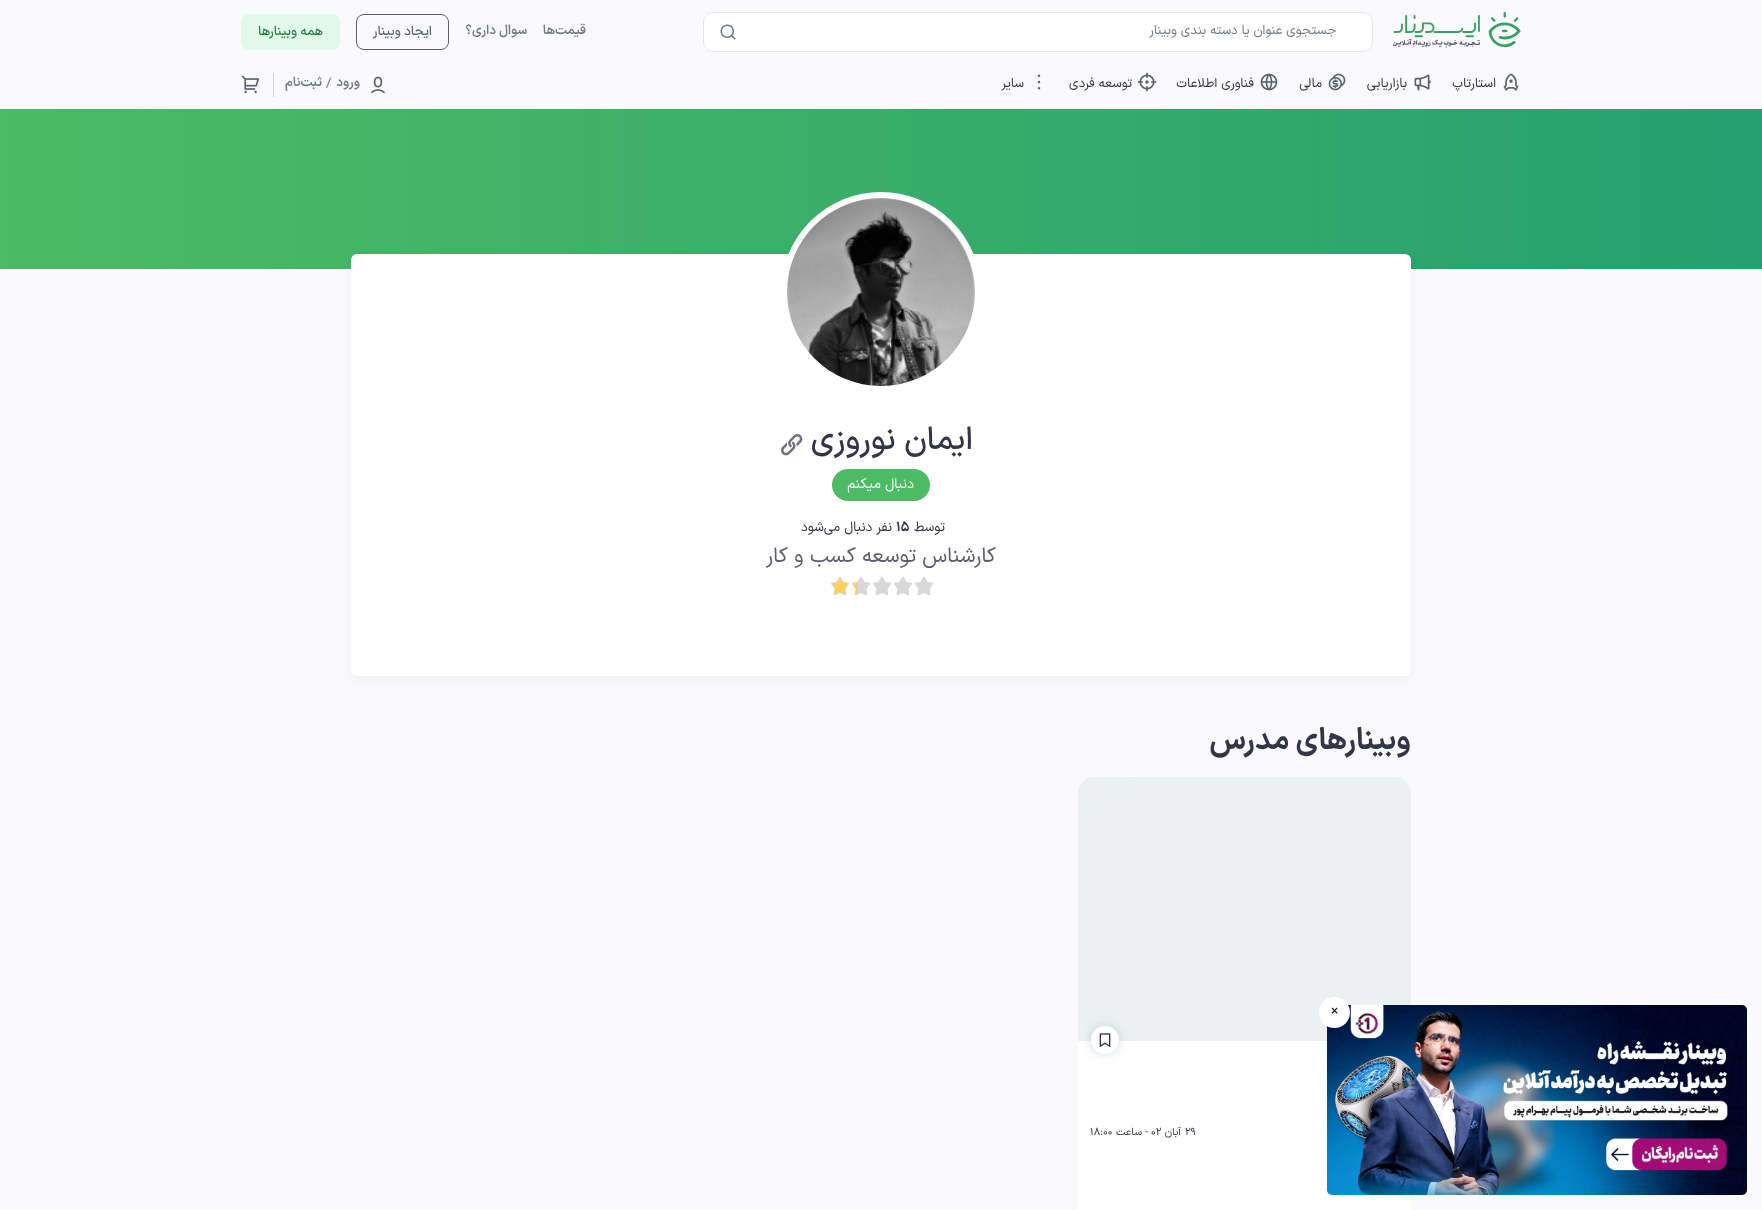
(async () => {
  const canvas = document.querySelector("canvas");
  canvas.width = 1762;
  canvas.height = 1210;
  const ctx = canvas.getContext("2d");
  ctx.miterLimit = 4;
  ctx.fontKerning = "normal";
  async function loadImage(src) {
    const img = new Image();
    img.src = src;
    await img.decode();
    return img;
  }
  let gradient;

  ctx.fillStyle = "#fafafc";
  ctx.fillRect(0, 0, 1762, 1210);
  ctx.drawImage(await loadImage("img/1.png"), 1393, 12, 128, 36);
  ctx.fillStyle = "#ffffff";
  ctx.beginPath();
  ctx.roundRect(703.5, 12.5, 669, 39, 9.5);
  ctx.fill();
  ctx.strokeStyle = "#e5e8ea";
  ctx.stroke();
  ctx.drawImage(await loadImage("img/2.png"), 720, 24, 16, 16);
  ctx.beginPath();
  ctx.roundRect(356.5, 14.5, 92, 35, 7.5);
  ctx.strokeStyle = "#58636e";
  ctx.stroke();
  ctx.fillStyle = "#e2f8eb";
  ctx.beginPath();
  ctx.roundRect(241, 14, 99, 36, 8);
  ctx.fill();
  ctx.drawImage(await loadImage("img/3.png"), 1503, 73, 16, 18);
  ctx.drawImage(await loadImage("img/4.png"), 1414, 74, 17, 17);
  ctx.drawImage(await loadImage("img/5.png"), 1328, 73, 18, 18);
  ctx.drawImage(await loadImage("img/6.png"), 1260, 73, 18, 18);
  ctx.drawImage(await loadImage("img/7.png"), 1137, 72, 20, 20);
  ctx.drawImage(await loadImage("img/8.png"), 1037, 74, 4, 16);
  ctx.drawImage(await loadImage("img/9.png"), 371, 76, 14, 18);
  ctx.fillStyle = "#cfd2d6";
  ctx.fillRect(273, 73, 1, 24);
  ctx.drawImage(await loadImage("img/10.png"), 241, 75, 18, 19);
  gradient = ctx.createLinearGradient(0, 189, 1762, 189);
  gradient.addColorStop(0, "#4dba64");
  gradient.addColorStop(1, "#25a06f");
  ctx.fillStyle = gradient;
  ctx.fillRect(0, 109, 1762, 160);
  ctx.fillStyle = "rgba(20, 83, 155, 0.05)";
  ctx.filter = "blur(5px)";
  ctx.beginPath();
  ctx.roundRect(351, 259, 1060, 422, 6);
  ctx.fill();
  ctx.filter = "none";
  ctx.fillStyle = "#ffffff";
  ctx.beginPath();
  ctx.roundRect(351, 254, 1060, 422, 6);
  ctx.fill();
  ctx.beginPath();
  ctx.arc(881, 292, 97, 0, Math.PI * 2);
  ctx.fill();
  ctx.strokeStyle = "#ffffff";
  ctx.lineWidth = 6;
  ctx.stroke();
  ctx.drawImage(await loadImage("img/11.png"), 787, 198, 188, 188);
  ctx.drawImage(await loadImage("img/12.png"), 781, 434, 22, 22);
  ctx.fillStyle = "#4dba64";
  ctx.beginPath();
  ctx.roundRect(832, 469, 98, 32, 16);
  ctx.fill();
  ctx.drawImage(await loadImage("img/13.png"), 915, 576, 18, 20);
  ctx.drawImage(await loadImage("img/13.png"), 894, 576, 18, 20);
  ctx.drawImage(await loadImage("img/13.png"), 873, 576, 18, 20);
  ctx.drawImage(await loadImage("img/14.png"), 852, 576, 18, 20);
  ctx.drawImage(await loadImage("img/15.png"), 831, 576, 18, 20);
  ctx.fillStyle = "#ffffff";
  ctx.beginPath();
  ctx.roundRect(1078, 777, 333, 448, 16);
  ctx.fill();
  ctx.drawImage(await loadImage("img/16.png"), 1078, 777, 333, 264);
  ctx.fillStyle = "rgba(20, 83, 155, 0.2)";
  ctx.filter = "blur(5px)";
  ctx.beginPath();
  ctx.roundRect(1091, 1026, 28, 28, 14);
  ctx.fill();
  ctx.filter = "none";
  ctx.fillStyle = "#ffffff";
  ctx.beginPath();
  ctx.arc(1105, 1040, 14, 0, Math.PI * 2);
  ctx.fill();
  ctx.drawImage(await loadImage("img/17.png"), 1099, 1033, 12, 14);
  ctx.drawImage(await loadImage("img/18.png"), 1327, 1005, 420, 190);
  ctx.beginPath();
  ctx.arc(1334.5, 1012.5, 15.5, 0, Math.PI * 2);
  ctx.fill();
  ctx.direction = "rtl";
  ctx.font = "13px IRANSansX";
  ctx.fillStyle = "#707983";
  ctx.fillText("جستجوی عنوان یا دسته بندی وبینار", 1336, 34);
  ctx.font = "600 13px IRANSansX";
  ctx.fillText("قیمت‌ها", 586, 34);
  ctx.fillText("سوال داری؟", 527, 34);
  ctx.font = "500 13px IRANSansX";
  ctx.fillStyle = "#58636e";
  ctx.fillText("ایجاد وبینار", 432, 35);
  ctx.fillStyle = "#247b48";
  ctx.fillText("همه وبینارها", 323, 35);
  ctx.font = "13px IRANSansX";
  ctx.fillStyle = "#343448";
  for (const [text, x, y] of [
    ["استارتاپ", 1496, 87],
    ["بازاریابی", 1407, 87],
    ["مالی", 1322, 87],
    ["فناوری اطلاعات", 1254, 87],
    ["توسعه فردی", 1132, 87],
    ["سایر", 1024, 87],
  ]) {
    ctx.fillText(text, x, y);
  }
  ctx.font = "600 13px IRANSansX";
  ctx.fillStyle = "#707983";
  ctx.fillText("ورود", 360, 86);
  ctx.direction = "ltr";
  ctx.font = "13.5px IRANSansX";
  ctx.fillText("/", 326, 87);
  ctx.direction = "rtl";
  ctx.font = "600 13px IRANSansX";
  ctx.fillText("ثبت‌نام", 322, 86);
  ctx.font = "500 32px IRANSansX";
  ctx.fillStyle = "#343448";
  ctx.fillText("ایمان نوروزی", 973, 449);
  ctx.font = "14px IRANSansX";
  ctx.fillStyle = "#ffffff";
  ctx.fillText("دنبال میکنم", 914, 488);
  ctx.font = "13.5px IRANSansX";
  ctx.fillStyle = "#343448";
  ctx.fillText("توسط", 945, 531);
  ctx.direction = "ltr";
  ctx.font = "bold 13.5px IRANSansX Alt";
  ctx.fillText("15", 896, 531);
  ctx.direction = "rtl";
  ctx.font = "13.5px IRANSansX";
  ctx.fillText("نفر دنبال می‌شود", 892, 531);
  ctx.font = "21px IRANSansX";
  ctx.fillStyle = "#5e5e6e";
  ctx.fillText("کارشناس توسعه کسب و کار", 996, 562);
  ctx.font = "bold 30px IRANSansX";
  ctx.fillStyle = "#343448";
  ctx.fillText("وبینارهای مدرس", 1411, 749);
  ctx.direction = "ltr";
  ctx.font = "10.5px IRANSansX Alt";
  ctx.fillText("29", 1185, 1135);
  ctx.direction = "rtl";
  ctx.font = "10.5px IRANSansX";
  ctx.fillText("آبان", 1181, 1135);
  ctx.direction = "ltr";
  ctx.font = "10.5px IRANSansX Alt";
  ctx.fillText("02", 1151, 1135);
  ctx.direction = "rtl";
  ctx.font = "10.5px IRANSansX";
  ctx.fillText("- ساعت", 1148, 1135);
  ctx.direction = "ltr";
  ctx.font = "10.5px IRANSansX Alt";
  ctx.fillText("18:00", 1090, 1135);
  ctx.font = "13.5px IRANSansX";
  ctx.fillStyle = "#171717";
  ctx.fillText("×", 1331, 1015);
})();
